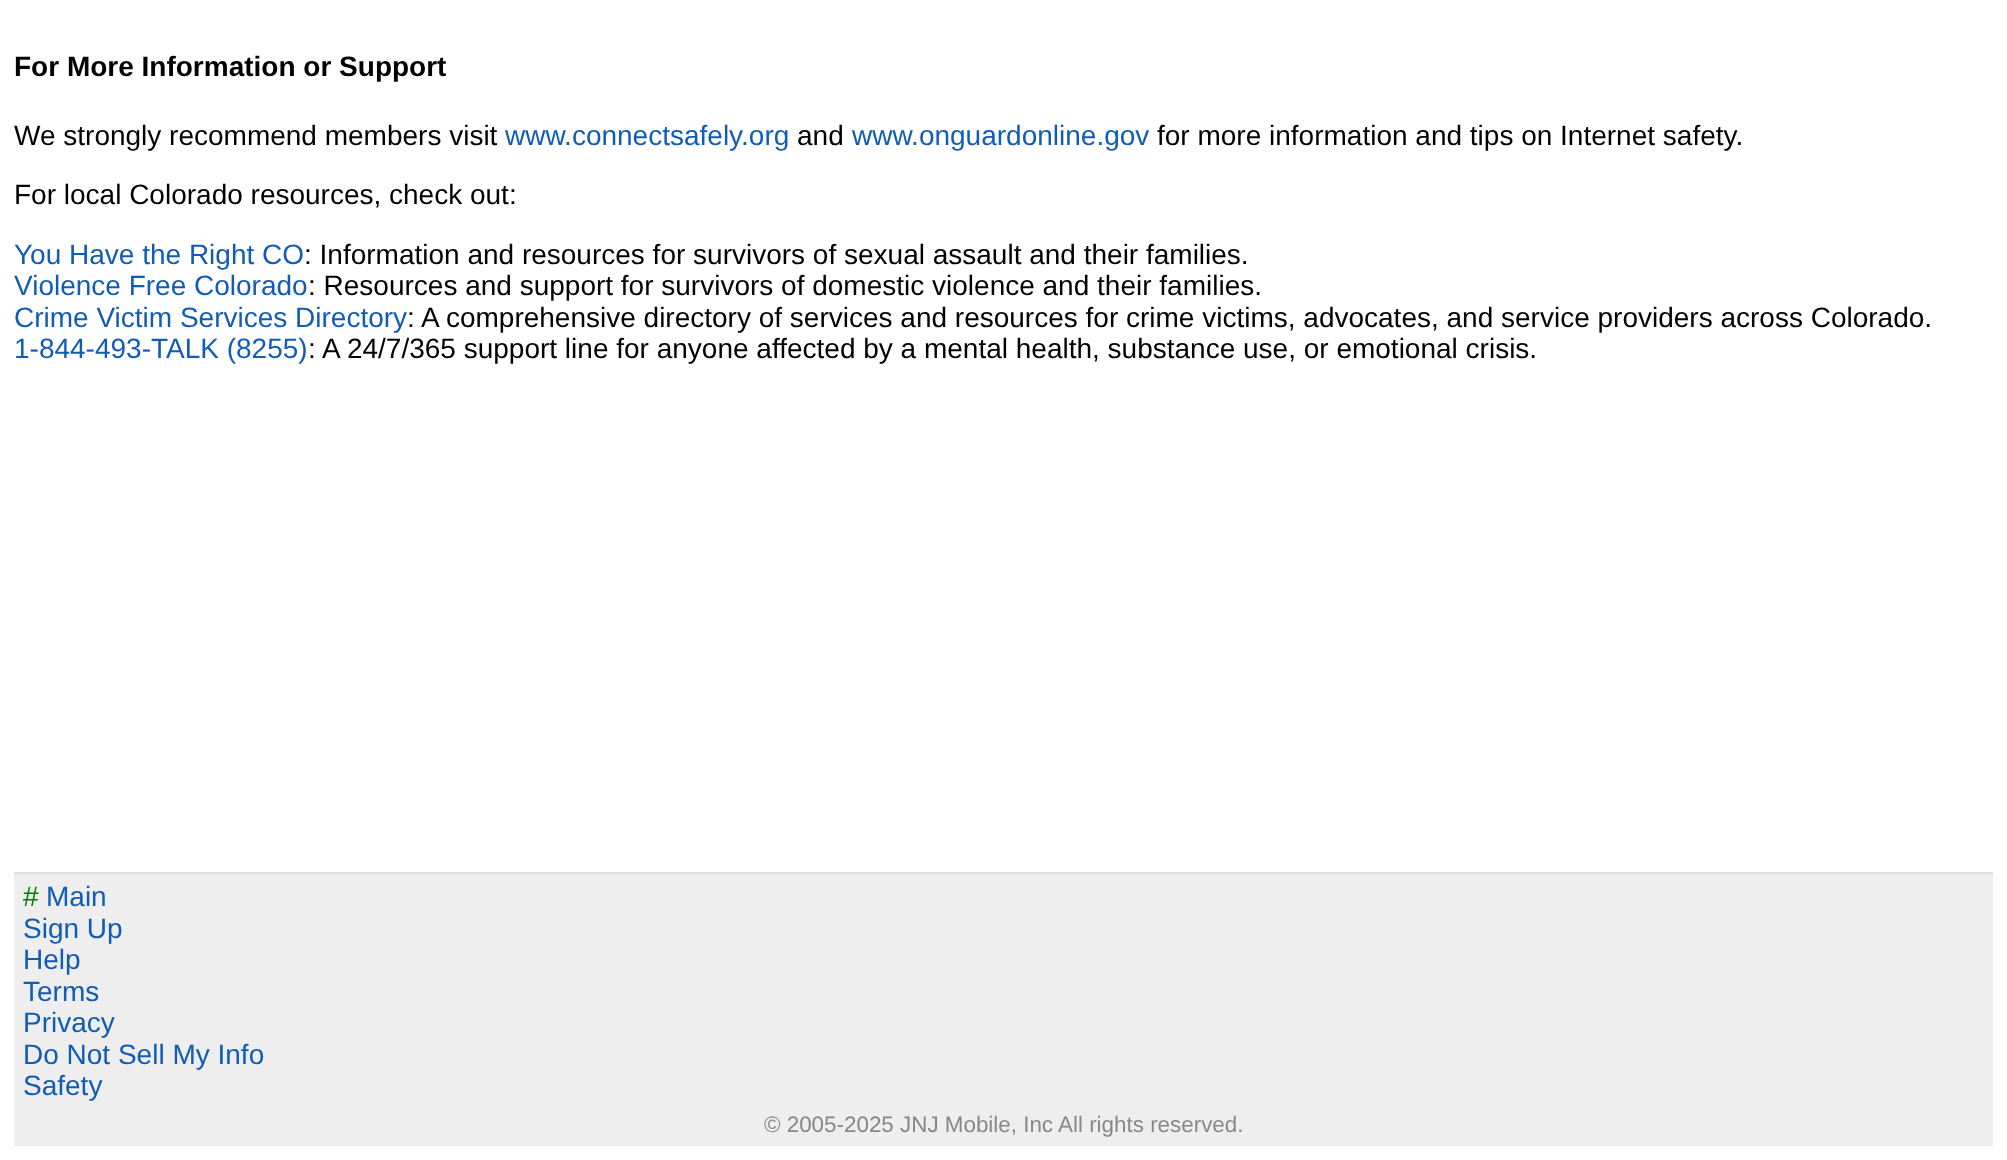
(async () => {
  const canvas = document.querySelector("canvas");
  canvas.width = 2007;
  canvas.height = 1160;
  const ctx = canvas.getContext("2d");
  ctx.miterLimit = 4;
  ctx.fontKerning = "normal";

  ctx.fillStyle = "#ffffff";
  ctx.fillRect(0, 0, 2007, 1160);
  ctx.fillStyle = "#eeeeee";
  ctx.fillRect(14, 874, 1979, 272);
  ctx.fillStyle = "#dddddd";
  ctx.fillRect(14, 872, 1979, 2);
  ctx.font = "bold 28px Liberation Sans";
  ctx.fillStyle = "#000000";
  ctx.fillText("For More Information or Support", 14, 76);
  ctx.font = "28px Liberation Sans";
  ctx.fillText("We strongly recommend members visit", 14, 145);
  ctx.fillStyle = "#105cb6";
  ctx.fillText("www.connectsafely.org", 505, 145);
  ctx.fillStyle = "#000000";
  ctx.fillText("and", 797, 145);
  ctx.fillStyle = "#105cb6";
  ctx.fillText("www.onguardonline.gov", 852, 145);
  ctx.fillStyle = "#000000";
  ctx.fillText("for more information and tips on Internet safety.", 1157, 145);
  ctx.fillText("For local Colorado resources, check out:", 14, 204);
  ctx.fillStyle = "#105cb6";
  ctx.fillText("You Have the Right CO", 14, 264);
  ctx.fillStyle = "#000000";
  ctx.fillText(": Information and resources for survivors of sexual assault and their families.", 304, 264);
  ctx.fillStyle = "#105cb6";
  ctx.fillText("Violence Free Colorado", 14, 295);
  ctx.fillStyle = "#000000";
  ctx.fillText(": Resources and support for survivors of domestic violence and their families.", 308, 295);
  ctx.fillStyle = "#105cb6";
  ctx.fillText("Crime Victim Services Directory", 14, 327);
  ctx.fillStyle = "#000000";
  ctx.fillText(": A comprehensive directory of services and resources for crime victims, advocates, and service providers across Colorado.", 407, 327);
  ctx.fillStyle = "#105cb6";
  ctx.fillText("1-844-493-TALK (8255)", 14, 358);
  ctx.fillStyle = "#000000";
  ctx.fillText(": A 24/7/365 support line for anyone affected by a mental health, substance use, or emotional crisis.", 308, 358);
  ctx.fillStyle = "#008000";
  ctx.fillText("#", 23, 906);
  ctx.fillStyle = "#105cb6";
  for (const [text, x, y] of [
    ["Main", 46, 906],
    ["Sign Up", 23, 938],
    ["Help", 23, 969],
    ["Terms", 23, 1001],
    ["Privacy", 23, 1032],
    ["Do Not Sell My Info", 23, 1064],
    ["Safety", 23, 1095],
  ]) {
    ctx.fillText(text, x, y);
  }
  ctx.font = "22.4px Liberation Sans";
  ctx.fillStyle = "#888888";
  ctx.fillText("© 2005-2025 JNJ Mobile, Inc All rights reserved.", 764, 1132);
})();
